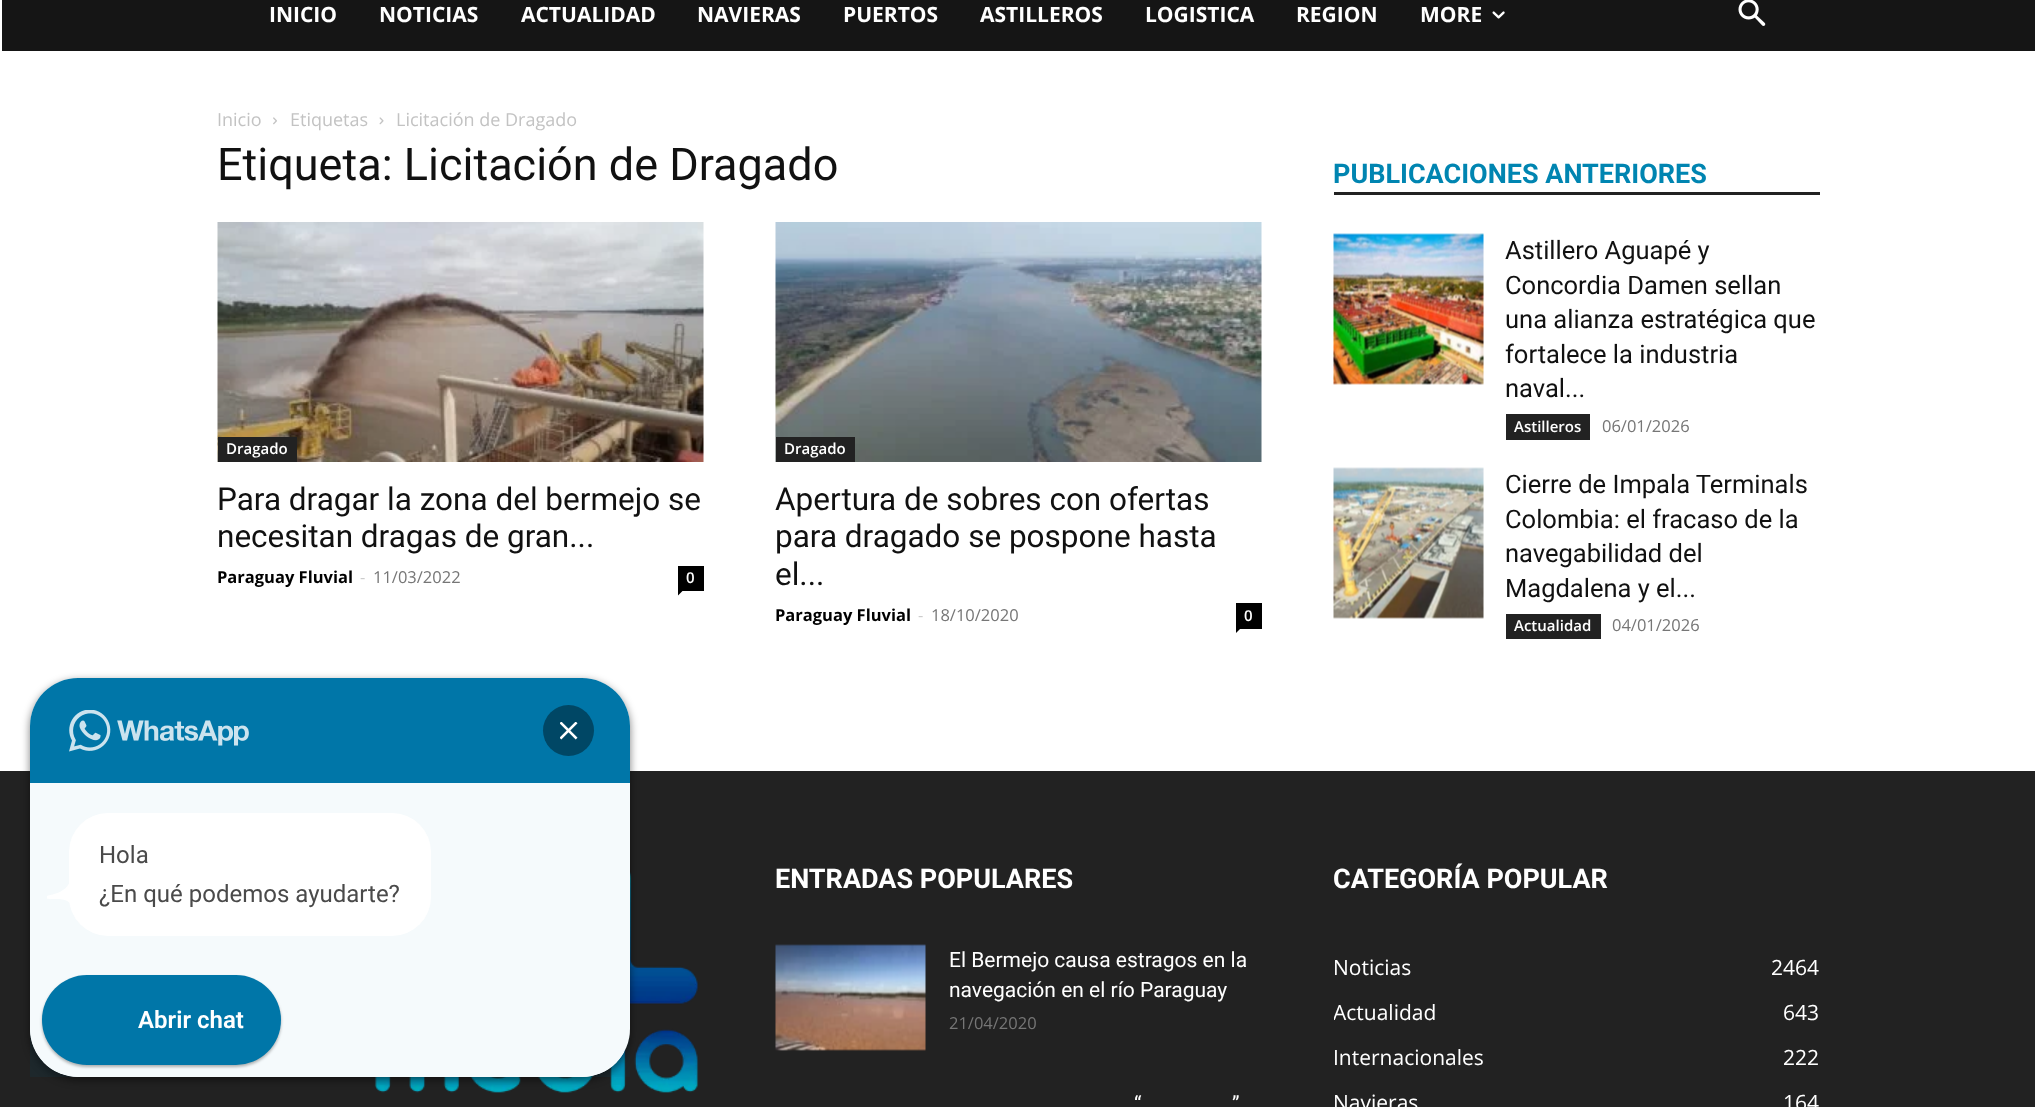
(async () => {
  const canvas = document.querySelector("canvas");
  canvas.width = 2035;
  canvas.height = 1107;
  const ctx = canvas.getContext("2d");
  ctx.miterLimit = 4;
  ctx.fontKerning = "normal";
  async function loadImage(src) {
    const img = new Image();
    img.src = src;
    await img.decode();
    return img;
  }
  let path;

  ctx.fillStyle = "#ffffff";
  ctx.fillRect(0, 0, 2035, 1107);
  ctx.fillStyle = "#151515";
  ctx.fillRect(2, 0, 2033, 51);
  ctx.drawImage(await loadImage("img/1.png"), 1492, 11, 13, 8);
  ctx.drawImage(await loadImage("img/2.png"), 1738, 0, 28, 26);
  ctx.drawImage(await loadImage("img/3.png"), 273, 117, 4, 8);
  ctx.drawImage(await loadImage("img/4.png"), 379, 117, 5, 8);
  ctx.drawImage(await loadImage("img/5.png"), 217, 222, 487, 240);
  ctx.fillStyle = "#222222";
  ctx.fillRect(218, 437, 79, 25);
  ctx.fillStyle = "#000000";
  ctx.fillRect(678, 566, 26, 25);
  path = new Path2D("M678 591H682.5L678 595.5Z");
  ctx.fill(path);
  ctx.drawImage(await loadImage("img/6.png"), 775, 222, 487, 240);
  ctx.fillStyle = "#222222";
  ctx.fillRect(776, 437, 79, 25);
  ctx.fillStyle = "#000000";
  ctx.fillRect(1236, 603, 26, 26);
  path = new Path2D("M1236 628.5H1240.5L1236 633Z");
  ctx.fill(path);
  ctx.fillStyle = "#222222";
  ctx.fillRect(1334, 192, 486, 3);
  ctx.drawImage(await loadImage("img/7.png"), 1333, 233, 151, 152);
  ctx.fillRect(1506, 414, 84, 26);
  ctx.drawImage(await loadImage("img/8.png"), 1333, 467, 151, 152);
  ctx.fillRect(1506, 614, 95, 25);
  ctx.fillRect(0, 771, 2035, 336);
  ctx.drawImage(await loadImage("img/9.png"), 374, 872, 325, 221);
  ctx.drawImage(await loadImage("img/10.png"), 775, 944, 151, 107);
  ctx.fillStyle = "rgba(0, 0, 0, 0.5)";
  ctx.filter = "blur(4.5px)";
  ctx.beginPath();
  ctx.roundRect(30, 681, 600, 399, 48);
  ctx.fill();
  ctx.filter = "none";
  ctx.fillStyle = "#ffffff";
  ctx.beginPath();
  ctx.roundRect(30, 678, 600, 399, 48);
  ctx.fill();
  ctx.fillStyle = "#0076a8";
  ctx.beginPath();
  ctx.roundRect(30, 678, 600, 105, [48, 48, 0, 0]);
  ctx.fill();
  ctx.fillStyle = "rgba(0, 118, 168, 0.04)";
  ctx.fillRect(30, 783, 600, 294);
  ctx.drawImage(await loadImage("img/11.png"), 69, 710, 180, 42);
  ctx.fillStyle = "#004765";
  ctx.beginPath();
  ctx.arc(568.5, 730.5, 25.5, 0, Math.PI * 2);
  ctx.fill();
  ctx.drawImage(await loadImage("img/12.png"), 560, 722, 18, 18);
  ctx.fillStyle = "#ffffff";
  ctx.beginPath();
  ctx.roundRect(69, 813, 362, 123, 39);
  ctx.fill();
  path = new Path2D("M72 909C72 899 60.5 899 53 899C52.5 899 48 899.5 47 898.5V896L48 895.5C55.5 894 71.5 891 72 872Z");
  ctx.fill(path);
  ctx.save();
  ctx.beginPath();
  ctx.roundRect(30, 678, 600, 399, 48);
  ctx.clip();
  ctx.beginPath();
  ctx.roundRect(30, 957, 594, 120, [0, 0, 0, 48]);
  ctx.fill();
  ctx.restore();
  ctx.fillStyle = "rgba(0, 118, 168, 0.04)";
  ctx.fillRect(30, 957, 594, 120);
  ctx.fillStyle = "rgba(0, 0, 0, 0.3)";
  ctx.filter = "blur(1.5px)";
  ctx.beginPath();
  ctx.roundRect(42, 977, 239, 90, 45);
  ctx.fill();
  ctx.filter = "none";
  ctx.fillStyle = "#0076a8";
  ctx.beginPath();
  ctx.roundRect(42, 975, 239, 90, 45);
  ctx.fill();
  ctx.font = "bold 21px Open Sans";
  ctx.fillStyle = "#ffffff";
  for (const [text, x, y] of [
    ["INICIO", 269, 22],
    ["NOTICIAS", 379, 22],
    ["ACTUALIDAD", 521, 22],
    ["NAVIERAS", 697, 22],
    ["PUERTOS", 843, 22],
    ["ASTILLEROS", 980, 22],
    ["LOGISTICA", 1145, 22],
    ["REGION", 1296, 22],
    ["MORE", 1420, 22],
  ]) {
    ctx.fillText(text, x, y);
  }
  ctx.font = "18px Open Sans";
  ctx.fillStyle = "#c3c3c3";
  for (const [text, x, y] of [
    ["Inicio", 217, 126],
    ["Etiquetas", 290, 126],
    ["Licitación de Dragado", 396, 126],
  ]) {
    ctx.fillText(text, x, y);
  }
  ctx.font = "45px Roboto";
  ctx.fillStyle = "#111111";
  ctx.fillText("Etiqueta: Licitación de Dragado", 217, 180);
  ctx.font = "600 15px Open Sans";
  ctx.fillStyle = "#ffffff";
  ctx.fillText("Dragado", 226, 454);
  ctx.font = "31.5px Roboto";
  ctx.fillStyle = "#111111";
  ctx.fillText("Para dragar la zona del bermejo se", 217, 510);
  ctx.fillText("necesitan dragas de gran...", 217, 547);
  ctx.font = "bold 16.5px Open Sans";
  ctx.fillStyle = "#000000";
  ctx.fillText("Paraguay Fluvial", 217, 583);
  ctx.font = "16.5px Open Sans";
  ctx.fillStyle = "#cccccc";
  ctx.fillText("-", 360, 583);
  ctx.fillStyle = "#767676";
  ctx.fillText("11/03/2022", 373, 583);
  ctx.font = "600 15px Open Sans";
  ctx.fillStyle = "#ffffff";
  ctx.fillText("0", 686, 583);
  ctx.fillText("Dragado", 784, 454);
  ctx.font = "31.5px Roboto";
  ctx.fillStyle = "#111111";
  for (const [text, x, y] of [
    ["Apertura de sobres con ofertas", 775, 510],
    ["para dragado se pospone hasta", 775, 547],
    ["el...", 775, 585],
  ]) {
    ctx.fillText(text, x, y);
  }
  ctx.font = "bold 16.5px Open Sans";
  ctx.fillStyle = "#000000";
  ctx.fillText("Paraguay Fluvial", 775, 621);
  ctx.font = "16.5px Open Sans";
  ctx.fillStyle = "#cccccc";
  ctx.fillText("-", 918, 621);
  ctx.fillStyle = "#767676";
  ctx.fillText("18/10/2020", 931, 621);
  ctx.font = "600 15px Open Sans";
  ctx.fillStyle = "#ffffff";
  ctx.fillText("0", 1244, 621);
  ctx.font = "bold 27px Roboto";
  ctx.fillStyle = "#0085b1";
  ctx.fillText("PUBLICACIONES ANTERIORES", 1333, 183);
  ctx.font = "25.5px Roboto";
  ctx.fillStyle = "#111111";
  for (const [text, x, y] of [
    ["Astillero Aguapé y", 1505, 259],
    ["Concordia Damen sellan", 1505, 294],
    ["una alianza estratégica que", 1505, 328],
    ["fortalece la industria", 1505, 363],
    ["naval...", 1505, 397],
  ]) {
    ctx.fillText(text, x, y);
  }
  ctx.font = "600 15px Open Sans";
  ctx.fillStyle = "#ffffff";
  ctx.fillText("Astilleros", 1514, 432);
  ctx.font = "16.5px Open Sans";
  ctx.fillStyle = "#767676";
  ctx.fillText("06/01/2026", 1602, 432);
  ctx.font = "25.5px Roboto";
  ctx.fillStyle = "#111111";
  for (const [text, x, y] of [
    ["Cierre de Impala Terminals", 1505, 493],
    ["Colombia: el fracaso de la", 1505, 528],
    ["navegabilidad del", 1505, 562],
    ["Magdalena y el...", 1505, 597],
  ]) {
    ctx.fillText(text, x, y);
  }
  ctx.font = "600 15px Open Sans";
  ctx.fillStyle = "#ffffff";
  ctx.fillText("Actualidad", 1514, 631);
  ctx.font = "16.5px Open Sans";
  ctx.fillStyle = "#767676";
  ctx.fillText("04/01/2026", 1612, 631);
  ctx.font = "bold 27px Roboto";
  ctx.fillStyle = "#ffffff";
  ctx.fillText("ENTRADAS POPULARES", 775, 888);
  ctx.font = "21px Roboto";
  ctx.fillText("El Bermejo causa estragos en la", 949, 967);
  ctx.fillText("navegación en el río Paraguay", 949, 997);
  ctx.font = "16.5px Open Sans";
  ctx.fillStyle = "#767676";
  ctx.fillText("21/04/2020", 949, 1029);
  ctx.font = "21px Roboto";
  ctx.fillStyle = "#ffffff";
  ctx.fillText("“", 1134, 1111);
  ctx.fillText("”", 1232, 1111);
  ctx.save();
  ctx.beginPath();
  ctx.rect(1334, 854, 486, 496);
  ctx.clip();
  ctx.font = "bold 27px Roboto";
  ctx.fillText("CATEGORÍA POPULAR", 1333, 888);
  ctx.restore();
  ctx.font = "21px Open Sans";
  ctx.fillText("Noticias", 1333, 975);
  ctx.fillText("2464", 1771, 975);
  ctx.save();
  ctx.beginPath();
  ctx.rect(1334, 854, 486, 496);
  ctx.clip();
  ctx.fillText("Actualidad", 1333, 1020);
  ctx.restore();
  for (const [text, x, y] of [
    ["643", 1783, 1020],
    ["Internacionales", 1333, 1065],
    ["222", 1783, 1065],
    ["Navieras", 1333, 1110],
    ["164", 1783, 1110],
  ]) {
    ctx.fillText(text, x, y);
  }
  ctx.font = "24px Roboto";
  ctx.fillStyle = "#4a4a4a";
  ctx.fillText("Hola", 99, 863);
  ctx.fillText("¿En qué podemos ayudarte?", 99, 902);
  ctx.font = "600 24px Roboto";
  ctx.fillStyle = "#ffffff";
  ctx.fillText("Abrir chat", 138, 1028);
})();
